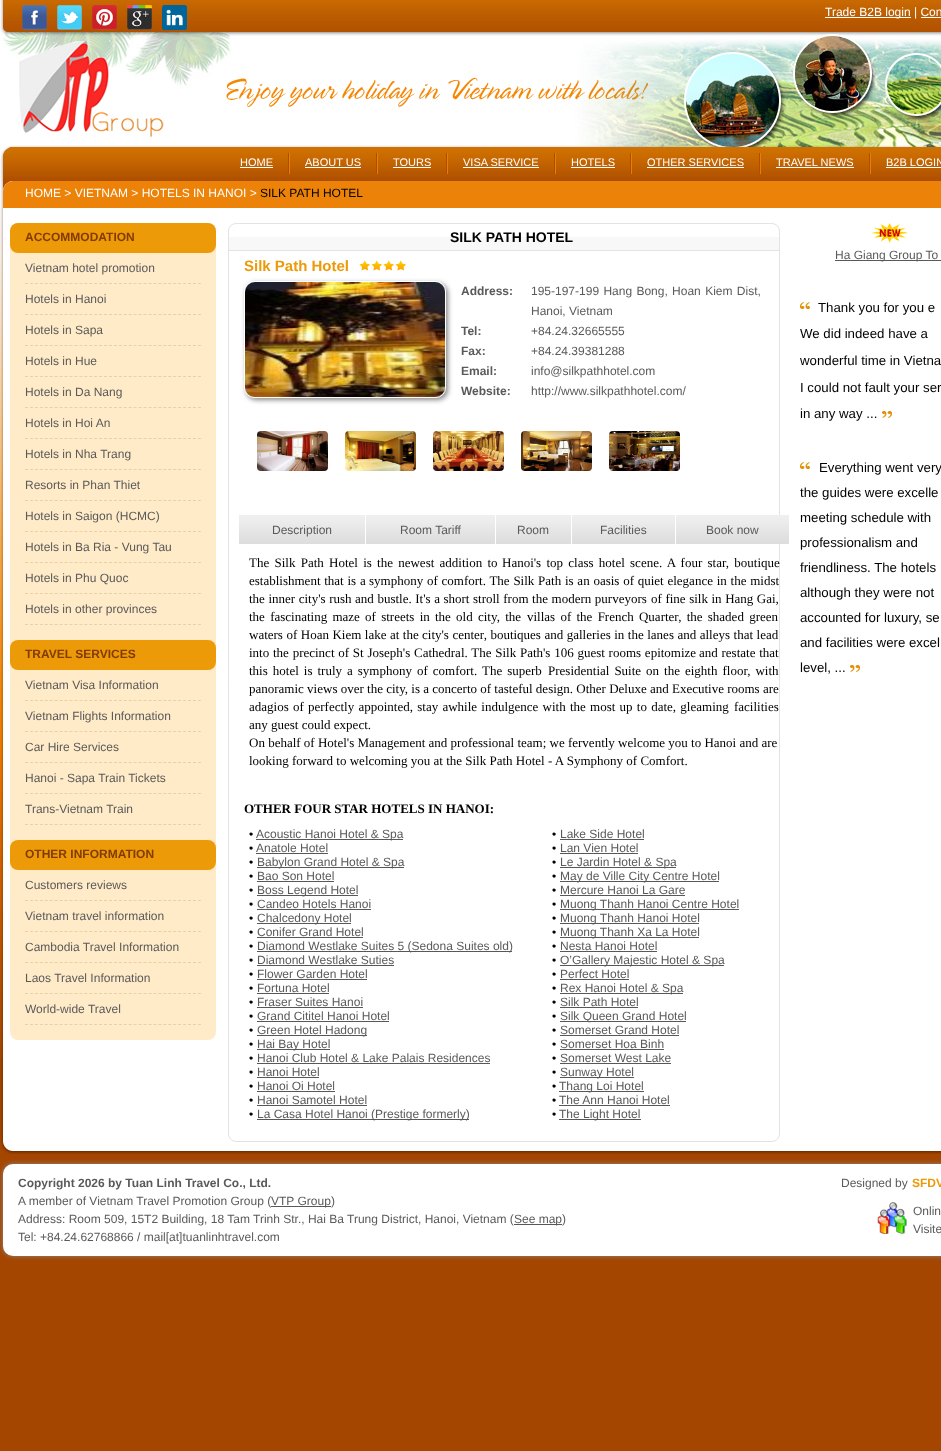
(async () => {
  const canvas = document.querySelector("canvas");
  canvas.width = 941;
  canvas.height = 1451;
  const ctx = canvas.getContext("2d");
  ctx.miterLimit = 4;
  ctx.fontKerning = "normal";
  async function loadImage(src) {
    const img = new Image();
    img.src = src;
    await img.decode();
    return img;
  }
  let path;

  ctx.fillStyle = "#a54600";
  ctx.fillRect(0, 0, 941, 1451);
  ctx.drawImage(await loadImage("img/1.png"), 0, 32, 3, 1026);
  ctx.drawImage(await loadImage("img/2.png"), 0, 0, 7, 32);
  ctx.drawImage(await loadImage("img/3.png"), 7, 0, 934, 32);
  ctx.drawImage(await loadImage("img/4.png"), 22, 5, 25, 25);
  ctx.drawImage(await loadImage("img/5.png"), 57, 5, 25, 25);
  ctx.drawImage(await loadImage("img/6.png"), 92, 5, 25, 25);
  ctx.drawImage(await loadImage("img/7.png"), 127, 5, 25, 25);
  ctx.drawImage(await loadImage("img/8.png"), 162, 5, 25, 25);
  ctx.fillStyle = "#ffffff";
  ctx.fillRect(825, 17, 86, 1);
  ctx.fillRect(921, 17, 20, 1);
  ctx.drawImage(await loadImage("img/9.png"), 2, 32, 939, 115);
  ctx.drawImage(await loadImage("img/10.png"), 10, 147, 931, 34);
  ctx.drawImage(await loadImage("img/11.png"), 0, 147, 10, 34);
  ctx.fillRect(240, 167, 33, 1);
  ctx.drawImage(await loadImage("img/12.png"), 288, 153, 2, 21);
  ctx.fillRect(305, 167, 56, 1);
  ctx.drawImage(await loadImage("img/12.png"), 376, 153, 2, 21);
  ctx.fillRect(393, 167, 38, 1);
  ctx.drawImage(await loadImage("img/12.png"), 446, 153, 2, 21);
  ctx.fillRect(463, 167, 76, 1);
  ctx.drawImage(await loadImage("img/12.png"), 554, 153, 2, 21);
  ctx.fillRect(571, 167, 44, 1);
  ctx.drawImage(await loadImage("img/12.png"), 630, 153, 2, 21);
  ctx.fillRect(647, 167, 97, 1);
  ctx.drawImage(await loadImage("img/12.png"), 759, 153, 2, 21);
  ctx.fillRect(776, 167, 78, 1);
  ctx.drawImage(await loadImage("img/12.png"), 869, 153, 2, 21);
  ctx.fillRect(886, 167, 55, 1);
  ctx.fillStyle = "#ec8308";
  ctx.fillRect(12, 181, 929, 27);
  ctx.drawImage(await loadImage("img/13.png"), 0, 181, 12, 27);
  ctx.drawImage(await loadImage("img/14.png"), 0, 208, 941, 934);
  ctx.fillStyle = "#ffebc7";
  ctx.beginPath();
  ctx.roundRect(10, 223, 206, 817, 8);
  ctx.fill();
  ctx.fillStyle = "#ec9a08";
  ctx.beginPath();
  ctx.roundRect(10, 223, 206, 30, 8);
  ctx.fill();
  path = new Path2D("M25 283.5H201");
  ctx.strokeStyle = "#e8d1a7";
  ctx.setLineDash([3, 1.94]);
  ctx.stroke(path);
  path = new Path2D("M25 314.5H201");
  ctx.stroke(path);
  path = new Path2D("M25 345.5H201");
  ctx.stroke(path);
  path = new Path2D("M25 376.5H201");
  ctx.stroke(path);
  path = new Path2D("M25 407.5H201");
  ctx.stroke(path);
  path = new Path2D("M25 438.5H201");
  ctx.stroke(path);
  path = new Path2D("M25 469.5H201");
  ctx.stroke(path);
  path = new Path2D("M25 500.5H201");
  ctx.stroke(path);
  path = new Path2D("M25 531.5H201");
  ctx.stroke(path);
  path = new Path2D("M25 562.5H201");
  ctx.stroke(path);
  path = new Path2D("M25 593.5H201");
  ctx.stroke(path);
  path = new Path2D("M25 624.5H201");
  ctx.stroke(path);
  ctx.beginPath();
  ctx.roundRect(10, 640, 206, 30, 8);
  ctx.fill();
  path = new Path2D("M25 700.5H201");
  ctx.stroke(path);
  path = new Path2D("M25 731.5H201");
  ctx.stroke(path);
  path = new Path2D("M25 762.5H201");
  ctx.stroke(path);
  path = new Path2D("M25 793.5H201");
  ctx.stroke(path);
  path = new Path2D("M25 824.5H201");
  ctx.stroke(path);
  ctx.beginPath();
  ctx.roundRect(10, 840, 206, 30, 8);
  ctx.fill();
  path = new Path2D("M25 900.5H201");
  ctx.stroke(path);
  path = new Path2D("M25 931.5H201");
  ctx.stroke(path);
  path = new Path2D("M25 962.5H201");
  ctx.stroke(path);
  path = new Path2D("M25 993.5H201");
  ctx.stroke(path);
  path = new Path2D("M25 1024.5H201");
  ctx.stroke(path);
  ctx.beginPath();
  ctx.roundRect(228.5, 223.5, 551, 918, 7.5);
  ctx.strokeStyle = "#e3e3e3";
  ctx.setLineDash([]);
  ctx.stroke();
  ctx.fillStyle = "#f8f8f8";
  ctx.fillRect(229, 237, 550, 13);
  ctx.fillStyle = "#e3e3e3";
  ctx.fillRect(229, 250, 550, 1);
  ctx.drawImage(await loadImage("img/15.png"), 359, 260, 47, 11);
  ctx.fillStyle = "#888888";
  ctx.filter = "blur(2.5px)";
  ctx.beginPath();
  ctx.roundRect(246, 283, 202, 117, 10);
  ctx.fill();
  ctx.filter = "none";
  ctx.beginPath();
  ctx.roundRect(244.5, 281.5, 201, 116, 9.5);
  ctx.strokeStyle = "#ffffff";
  ctx.stroke();
  ctx.drawImage(await loadImage("img/16.png"), 245, 282, 200, 115);
  ctx.drawImage(await loadImage("img/17.png"), 257, 431, 71, 40);
  ctx.drawImage(await loadImage("img/18.png"), 345, 431, 71, 40);
  ctx.drawImage(await loadImage("img/19.png"), 433, 431, 71, 40);
  ctx.drawImage(await loadImage("img/20.png"), 521, 431, 71, 40);
  ctx.drawImage(await loadImage("img/21.png"), 609, 431, 71, 40);
  ctx.drawImage(await loadImage("img/22.png"), 239, 515, 550, 29);
  for (const [x, y, w, h, color] of [
    [365, 515, 1, 29, "#ffffff"],
    [495, 515, 1, 29, "#ffffff"],
    [571, 515, 1, 29, "#ffffff"],
    [675, 515, 1, 29, "#ffffff"],
    [256, 839, 147, 1, "#585858"],
    [256, 853, 72, 1, "#585858"],
    [257, 867, 147, 1, "#585858"],
    [257, 881, 77, 1, "#585858"],
    [257, 895, 101, 1, "#585858"],
    [257, 909, 114, 1, "#585858"],
    [257, 923, 94, 1, "#585858"],
    [257, 937, 106, 1, "#585858"],
    [257, 951, 255, 1, "#585858"],
    [257, 965, 137, 1, "#585858"],
    [257, 979, 110, 1, "#585858"],
    [257, 993, 72, 1, "#585858"],
    [257, 1007, 106, 1, "#585858"],
    [257, 1021, 132, 1, "#585858"],
    [257, 1035, 110, 1, "#585858"],
    [257, 1049, 73, 1, "#585858"],
    [257, 1063, 233, 1, "#585858"],
    [257, 1077, 62, 1, "#585858"],
    [257, 1091, 78, 1, "#585858"],
    [257, 1105, 110, 1, "#585858"],
    [257, 1119, 212, 1, "#585858"],
    [560, 839, 84, 1, "#585858"],
    [560, 853, 78, 1, "#585858"],
    [560, 867, 116, 1, "#585858"],
    [560, 881, 159, 1, "#585858"],
    [560, 895, 125, 1, "#585858"],
    [560, 909, 179, 1, "#585858"],
    [560, 923, 139, 1, "#585858"],
    [560, 937, 139, 1, "#585858"],
    [560, 951, 97, 1, "#585858"],
    [560, 965, 164, 1, "#585858"],
    [560, 979, 69, 1, "#585858"],
    [560, 993, 123, 1, "#585858"],
    [560, 1007, 78, 1, "#585858"],
    [560, 1021, 126, 1, "#585858"],
    [560, 1035, 119, 1, "#585858"],
    [560, 1049, 104, 1, "#585858"],
    [560, 1063, 111, 1, "#585858"],
    [560, 1077, 74, 1, "#585858"],
    [559, 1091, 85, 1, "#585858"],
    [559, 1105, 111, 1, "#585858"],
    [559, 1119, 82, 1, "#585858"],
  ]) {
    ctx.fillStyle = color;
    ctx.fillRect(x, y, w, h);
  }
  ctx.drawImage(await loadImage("img/23.png"), 871, 223, 37, 20);
  ctx.fillRect(835, 260, 106, 1);
  ctx.drawImage(await loadImage("img/24.png"), 800, 302, 10, 7);
  ctx.drawImage(await loadImage("img/25.png"), 882, 411, 10, 7);
  ctx.drawImage(await loadImage("img/24.png"), 800, 462, 10, 7);
  ctx.drawImage(await loadImage("img/25.png"), 850, 665, 10, 7);
  ctx.drawImage(await loadImage("img/26.png"), 0, 1142, 941, 12);
  ctx.fillStyle = "#888888";
  ctx.filter = "blur(2.5px)";
  ctx.beginPath();
  ctx.roundRect(3, 1164, 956, 92, 10);
  ctx.fill();
  ctx.filter = "none";
  ctx.fillStyle = "#ffffff";
  ctx.beginPath();
  ctx.roundRect(3, 1164, 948, 92, 10);
  ctx.fill();
  ctx.fillStyle = "#585858";
  ctx.fillRect(514, 1224, 48, 1);
  ctx.drawImage(await loadImage("img/27.png"), 877, 1202, 31, 32);
  ctx.font = "12px Liberation Sans";
  ctx.fillStyle = "#ffffff";
  ctx.fillText("Trade B2B login | Con", 825, 16);
  ctx.font = "11px Liberation Sans";
  for (const [text, x, y] of [
    ["HOME", 240, 166],
    ["ABOUT US", 305, 166],
    ["TOURS", 393, 166],
    ["VISA SERVICE", 463, 166],
    ["HOTELS", 571, 166],
    ["OTHER SERVICES", 647, 166],
    ["TRAVEL NEWS", 776, 166],
    ["B2B LOGIN", 886, 166],
  ]) {
    ctx.fillText(text, x, y);
  }
  ctx.font = "12px Liberation Sans";
  ctx.fillText("HOME > VIETNAM > HOTELS IN HANOI >", 25, 197);
  ctx.fillStyle = "#000000";
  ctx.fillText("SILK PATH HOTEL", 260, 197);
  ctx.font = "bold 12px Liberation Sans";
  ctx.fillStyle = "#823b02";
  ctx.fillText("ACCOMMODATION", 25, 241);
  ctx.font = "12px Liberation Sans";
  ctx.fillStyle = "#5a5a5a";
  for (const [text, x, y] of [
    ["Vietnam hotel promotion", 25, 272],
    ["Hotels in Hanoi", 25, 303],
    ["Hotels in Sapa", 25, 334],
    ["Hotels in Hue", 25, 365],
    ["Hotels in Da Nang", 25, 396],
    ["Hotels in Hoi An", 25, 427],
    ["Hotels in Nha Trang", 25, 458],
    ["Resorts in Phan Thiet", 25, 489],
    ["Hotels in Saigon (HCMC)", 25, 520],
    ["Hotels in Ba Ria - Vung Tau", 25, 551],
    ["Hotels in Phu Quoc", 25, 582],
    ["Hotels in other provinces", 25, 613],
  ]) {
    ctx.fillText(text, x, y);
  }
  ctx.font = "bold 12px Liberation Sans";
  ctx.fillStyle = "#823b02";
  ctx.fillText("TRAVEL SERVICES", 25, 658);
  ctx.font = "12px Liberation Sans";
  ctx.fillStyle = "#5a5a5a";
  for (const [text, x, y] of [
    ["Vietnam Visa Information", 25, 689],
    ["Vietnam Flights Information", 25, 720],
    ["Car Hire Services", 25, 751],
    ["Hanoi - Sapa Train Tickets", 25, 782],
    ["Trans-Vietnam Train", 25, 813],
  ]) {
    ctx.fillText(text, x, y);
  }
  ctx.font = "bold 12px Liberation Sans";
  ctx.fillStyle = "#823b02";
  ctx.fillText("OTHER INFORMATION", 25, 858);
  ctx.font = "12px Liberation Sans";
  ctx.fillStyle = "#5a5a5a";
  for (const [text, x, y] of [
    ["Customers reviews", 25, 889],
    ["Vietnam travel information", 25, 920],
    ["Cambodia Travel Information", 25, 951],
    ["Laos Travel Information", 25, 982],
    ["World-wide Travel", 25, 1013],
  ]) {
    ctx.fillText(text, x, y);
  }
  ctx.font = "bold 14px Liberation Sans";
  ctx.fillStyle = "#000000";
  ctx.fillText("SILK PATH HOTEL", 450, 242);
  ctx.font = "bold 15px Liberation Sans";
  ctx.fillStyle = "#ec9a08";
  ctx.fillText("Silk Path Hotel", 244, 271);
  ctx.font = "bold 12px Liberation Sans";
  ctx.fillStyle = "#5a5a5a";
  ctx.fillText("Address:", 461, 295);
  ctx.wordSpacing = "1px";
  ctx.font = "12px Liberation Sans";
  ctx.fillText("195-197-199 Hang Bong, Hoan Kiem Dist,", 531, 295);
  ctx.wordSpacing = "0px";
  ctx.fillText("Hanoi, Vietnam", 531, 315);
  ctx.font = "bold 12px Liberation Sans";
  ctx.fillText("Tel:", 461, 335);
  ctx.font = "12px Liberation Sans";
  ctx.fillText("+84.24.32665555", 531, 335);
  ctx.font = "bold 12px Liberation Sans";
  ctx.fillText("Fax:", 461, 355);
  ctx.font = "12px Liberation Sans";
  ctx.fillText("+84.24.39381288", 531, 355);
  ctx.font = "bold 12px Liberation Sans";
  ctx.fillText("Email:", 461, 375);
  ctx.font = "12px Liberation Sans";
  ctx.fillText("info@silkpathhotel.com", 531, 375);
  ctx.font = "bold 12px Liberation Sans";
  ctx.fillText("Website:", 461, 395);
  ctx.font = "12px Liberation Sans";
  for (const [text, x, y] of [
    ["http://www.silkpathhotel.com/", 531, 395],
    ["Description", 272, 534],
    ["Room Tariff", 400, 534],
    ["Room", 517, 534],
    ["Facilities", 600, 534],
    ["Book now", 706, 534],
  ]) {
    ctx.fillText(text, x, y);
  }
  ctx.wordSpacing = "2px";
  ctx.font = "13px Liberation Serif";
  ctx.fillStyle = "#000000";
  ctx.fillText("The Silk Path Hotel is the newest addition to", 249, 567);
  ctx.fillText("Hanoi's top class hotel scene. A four star, boutique", 502, 567);
  ctx.wordSpacing = "0.5px";
  ctx.fillText("establishment that is a", 249, 585);
  ctx.fillText("symphony of comfort. The Silk Path is an oasis of quiet elegance in the midst", 369, 585);
  ctx.wordSpacing = "0.3px";
  ctx.fillText("the inner city's rush and bustle. It's a short stroll from the modern purveyors", 249, 603);
  ctx.fillText("of fine silk in Hang Gai,", 651, 603);
  ctx.wordSpacing = "2px";
  ctx.fillText("the fascinating maze of streets in the old city, the", 249, 621);
  ctx.fillText("villas of the French Quarter, the shaded green", 527, 621);
  ctx.wordSpacing = "0.25px";
  ctx.fillText("waters of Hoan Kiem lake at the", 249, 639);
  ctx.fillText("city's center, boutiques and galleries in the lanes and alleys that lead", 422, 639);
  ctx.wordSpacing = "0px";
  ctx.fillText("into", 249, 657);
  ctx.wordSpacing = "0.5px";
  ctx.fillText("the precinct of St Joseph's Cathedral. The Silk Path's 106 guest rooms epitomize", 273, 657);
  ctx.fillText("and restate that", 699, 657);
  ctx.wordSpacing = "1.75px";
  ctx.fillText("this hotel is truly a symphony of comfort. The superb", 249, 675);
  ctx.fillText("Presidential Suite on the eighth floor, with", 548, 675);
  ctx.wordSpacing = "0px";
  ctx.fillText("panoramic views over the city, is a concerto of tasteful design. Other Deluxe and Executive rooms are", 249, 693);
  ctx.wordSpacing = "1px";
  ctx.fillText("adagios of", 249, 711);
  ctx.fillText("perfectly appointed, stay awhile indulgence with the most up to date, gleaming", 308, 711);
  ctx.wordSpacing = "0px";
  for (const [text, x, y] of [
    ["facilities", 734, 711],
    ["any guest could expect.", 249, 729],
    ["On behalf of Hotel's Management and professional team; we fervently welcome you to Hanoi and are", 249, 747],
    ["looking forward to welcoming you at the Silk Path Hotel - A Symphony of Comfort.", 249, 765],
  ]) {
    ctx.fillText(text, x, y);
  }
  ctx.font = "bold 13px Liberation Serif";
  ctx.fillText("OTHER FOUR STAR HOTELS IN HANOI:", 244, 813);
  ctx.font = "12px Liberation Sans";
  ctx.fillText("•", 249, 838);
  ctx.fillStyle = "#5a5a5a";
  ctx.fillText("Acoustic Hanoi Hotel & Spa", 256, 838);
  ctx.fillStyle = "#000000";
  ctx.fillText("•", 249, 852);
  ctx.fillStyle = "#5a5a5a";
  ctx.fillText("Anatole Hotel", 256, 852);
  ctx.fillStyle = "#000000";
  ctx.fillText("•", 249, 866);
  ctx.fillStyle = "#5a5a5a";
  ctx.fillText("Babylon Grand Hotel & Spa", 257, 866);
  ctx.fillStyle = "#000000";
  ctx.fillText("•", 249, 880);
  ctx.fillStyle = "#5a5a5a";
  ctx.fillText("Bao Son Hotel", 257, 880);
  ctx.fillStyle = "#000000";
  ctx.fillText("•", 249, 894);
  ctx.fillStyle = "#5a5a5a";
  ctx.fillText("Boss Legend Hotel", 257, 894);
  ctx.fillStyle = "#000000";
  ctx.fillText("•", 249, 908);
  ctx.fillStyle = "#5a5a5a";
  ctx.fillText("Candeo Hotels Hanoi", 257, 908);
  ctx.fillStyle = "#000000";
  ctx.fillText("•", 249, 922);
  ctx.fillStyle = "#5a5a5a";
  ctx.fillText("Chalcedony Hotel", 257, 922);
  ctx.fillStyle = "#000000";
  ctx.fillText("•", 249, 936);
  ctx.fillStyle = "#5a5a5a";
  ctx.fillText("Conifer Grand Hotel", 257, 936);
  ctx.fillStyle = "#000000";
  ctx.fillText("•", 249, 950);
  ctx.fillStyle = "#5a5a5a";
  ctx.fillText("Diamond Westlake Suites 5 (Sedona Suites old)", 257, 950);
  ctx.fillStyle = "#000000";
  ctx.fillText("•", 249, 964);
  ctx.fillStyle = "#5a5a5a";
  ctx.fillText("Diamond Westlake Suties", 257, 964);
  ctx.fillStyle = "#000000";
  ctx.fillText("•", 249, 978);
  ctx.fillStyle = "#5a5a5a";
  ctx.fillText("Flower Garden Hotel", 257, 978);
  ctx.fillStyle = "#000000";
  ctx.fillText("•", 249, 992);
  ctx.fillStyle = "#5a5a5a";
  ctx.fillText("Fortuna Hotel", 257, 992);
  ctx.fillStyle = "#000000";
  ctx.fillText("•", 249, 1006);
  ctx.fillStyle = "#5a5a5a";
  ctx.fillText("Fraser Suites Hanoi", 257, 1006);
  ctx.fillStyle = "#000000";
  ctx.fillText("•", 249, 1020);
  ctx.fillStyle = "#5a5a5a";
  ctx.fillText("Grand Cititel Hanoi Hotel", 257, 1020);
  ctx.fillStyle = "#000000";
  ctx.fillText("•", 249, 1034);
  ctx.fillStyle = "#5a5a5a";
  ctx.fillText("Green Hotel Hadong", 257, 1034);
  ctx.fillStyle = "#000000";
  ctx.fillText("•", 249, 1048);
  ctx.fillStyle = "#5a5a5a";
  ctx.fillText("Hai Bay Hotel", 257, 1048);
  ctx.fillStyle = "#000000";
  ctx.fillText("•", 249, 1062);
  ctx.fillStyle = "#5a5a5a";
  ctx.fillText("Hanoi Club Hotel & Lake Palais Residences", 257, 1062);
  ctx.fillStyle = "#000000";
  ctx.fillText("•", 249, 1076);
  ctx.fillStyle = "#5a5a5a";
  ctx.fillText("Hanoi Hotel", 257, 1076);
  ctx.fillStyle = "#000000";
  ctx.fillText("•", 249, 1090);
  ctx.fillStyle = "#5a5a5a";
  ctx.fillText("Hanoi Oi Hotel", 257, 1090);
  ctx.fillStyle = "#000000";
  ctx.fillText("•", 249, 1104);
  ctx.fillStyle = "#5a5a5a";
  ctx.fillText("Hanoi Samotel Hotel", 257, 1104);
  ctx.fillStyle = "#000000";
  ctx.fillText("•", 249, 1118);
  ctx.fillStyle = "#5a5a5a";
  ctx.fillText("La Casa Hotel Hanoi (Prestige formerly)", 257, 1118);
  ctx.fillStyle = "#000000";
  ctx.fillText("•", 552, 838);
  ctx.fillStyle = "#5a5a5a";
  ctx.fillText("Lake Side Hotel", 560, 838);
  ctx.fillStyle = "#000000";
  ctx.fillText("•", 552, 852);
  ctx.fillStyle = "#5a5a5a";
  ctx.fillText("Lan Vien Hotel", 560, 852);
  ctx.fillStyle = "#000000";
  ctx.fillText("•", 552, 866);
  ctx.fillStyle = "#5a5a5a";
  ctx.fillText("Le Jardin Hotel & Spa", 560, 866);
  ctx.fillStyle = "#000000";
  ctx.fillText("•", 552, 880);
  ctx.fillStyle = "#5a5a5a";
  ctx.fillText("May de Ville City Centre Hotel", 560, 880);
  ctx.fillStyle = "#000000";
  ctx.fillText("•", 552, 894);
  ctx.fillStyle = "#5a5a5a";
  ctx.fillText("Mercure Hanoi La Gare", 560, 894);
  ctx.fillStyle = "#000000";
  ctx.fillText("•", 552, 908);
  ctx.fillStyle = "#5a5a5a";
  ctx.fillText("Muong Thanh Hanoi Centre Hotel", 560, 908);
  ctx.fillStyle = "#000000";
  ctx.fillText("•", 552, 922);
  ctx.fillStyle = "#5a5a5a";
  ctx.fillText("Muong Thanh Hanoi Hotel", 560, 922);
  ctx.fillStyle = "#000000";
  ctx.fillText("•", 552, 936);
  ctx.fillStyle = "#5a5a5a";
  ctx.fillText("Muong Thanh Xa La Hotel", 560, 936);
  ctx.fillStyle = "#000000";
  ctx.fillText("•", 552, 950);
  ctx.fillStyle = "#5a5a5a";
  ctx.fillText("Nesta Hanoi Hotel", 560, 950);
  ctx.fillStyle = "#000000";
  ctx.fillText("•", 552, 964);
  ctx.fillStyle = "#5a5a5a";
  ctx.fillText("O’Gallery Majestic Hotel & Spa", 560, 964);
  ctx.fillStyle = "#000000";
  ctx.fillText("•", 552, 978);
  ctx.fillStyle = "#5a5a5a";
  ctx.fillText("Perfect Hotel", 560, 978);
  ctx.fillStyle = "#000000";
  ctx.fillText("•", 552, 992);
  ctx.fillStyle = "#5a5a5a";
  ctx.fillText("Rex Hanoi Hotel & Spa", 560, 992);
  ctx.fillStyle = "#000000";
  ctx.fillText("•", 552, 1006);
  ctx.fillStyle = "#5a5a5a";
  ctx.fillText("Silk Path Hotel", 560, 1006);
  ctx.fillStyle = "#000000";
  ctx.fillText("•", 552, 1020);
  ctx.fillStyle = "#5a5a5a";
  ctx.fillText("Silk Queen Grand Hotel", 560, 1020);
  ctx.fillStyle = "#000000";
  ctx.fillText("•", 552, 1034);
  ctx.fillStyle = "#5a5a5a";
  ctx.fillText("Somerset Grand Hotel", 560, 1034);
  ctx.fillStyle = "#000000";
  ctx.fillText("•", 552, 1048);
  ctx.fillStyle = "#5a5a5a";
  ctx.fillText("Somerset Hoa Binh", 560, 1048);
  ctx.fillStyle = "#000000";
  ctx.fillText("•", 552, 1062);
  ctx.fillStyle = "#5a5a5a";
  ctx.fillText("Somerset West Lake", 560, 1062);
  ctx.fillStyle = "#000000";
  ctx.fillText("•", 552, 1076);
  ctx.fillStyle = "#5a5a5a";
  ctx.fillText("Sunway Hotel", 560, 1076);
  ctx.fillStyle = "#000000";
  ctx.fillText("•", 552, 1090);
  ctx.fillStyle = "#5a5a5a";
  ctx.fillText("Thang Loi Hotel", 559, 1090);
  ctx.fillStyle = "#000000";
  ctx.fillText("•", 552, 1104);
  ctx.fillStyle = "#5a5a5a";
  ctx.fillText("The Ann Hanoi Hotel", 559, 1104);
  ctx.fillStyle = "#000000";
  ctx.fillText("•", 552, 1118);
  ctx.fillStyle = "#5a5a5a";
  ctx.fillText("The Light Hotel", 559, 1118);
  ctx.fillText("Ha Giang Group To", 835, 259);
  ctx.font = "13.25px Liberation Sans";
  ctx.fillStyle = "#000000";
  for (const [text, x, y] of [
    ["Thank you for you e", 818, 312],
    ["We did indeed have a", 800, 338],
    ["wonderful time in Vietna", 800, 365],
    ["I could not fault your ser", 800, 392],
    ["in any way ...", 800, 418],
    ["Everything went very", 819, 472],
    ["the guides were excelle", 800, 497],
    ["meeting schedule with", 800, 522],
    ["professionalism and", 800, 547],
    ["friendliness. The hotels", 800, 572],
    ["although they were not", 800, 597],
    ["accounted for luxury, se", 800, 622],
    ["and facilities were excel", 800, 647],
    ["level, ...", 800, 672],
  ]) {
    ctx.fillText(text, x, y);
  }
  ctx.font = "bold 12px Liberation Sans";
  ctx.fillStyle = "#5a5a5a";
  ctx.fillText("Copyright 2026 by Tuan Linh Travel Co., Ltd.", 18, 1187);
  ctx.font = "12px Liberation Sans";
  ctx.fillText("A member of Vietnam Travel Promotion Group (", 18, 1205);
  ctx.fillStyle = "#585858";
  ctx.fillRect(271, 1206, 60, 1);
  ctx.fillStyle = "#5a5a5a";
  for (const [text, x, y] of [
    ["VTP Group", 271, 1205],
    [")", 331, 1205],
    ["Address: Room 509, 15T2 Building, 18 Tam Trinh Str., Hai Ba Trung District, Hanoi, Vietnam (", 18, 1223],
    ["See map", 514, 1223],
    [")", 562, 1223],
    ["Tel: +84.24.62768866 / mail[at]tuanlinhtravel.com", 18, 1241],
    ["Designed by", 841, 1187],
  ]) {
    ctx.fillText(text, x, y);
  }
  ctx.font = "bold 12px Liberation Sans";
  ctx.fillStyle = "#ec9a08";
  ctx.fillText("SFDV", 912, 1187);
  ctx.font = "12px Liberation Sans";
  ctx.fillStyle = "#5a5a5a";
  ctx.fillText("Onlin", 913, 1215);
  ctx.fillText("Visite", 913, 1233);
})();
